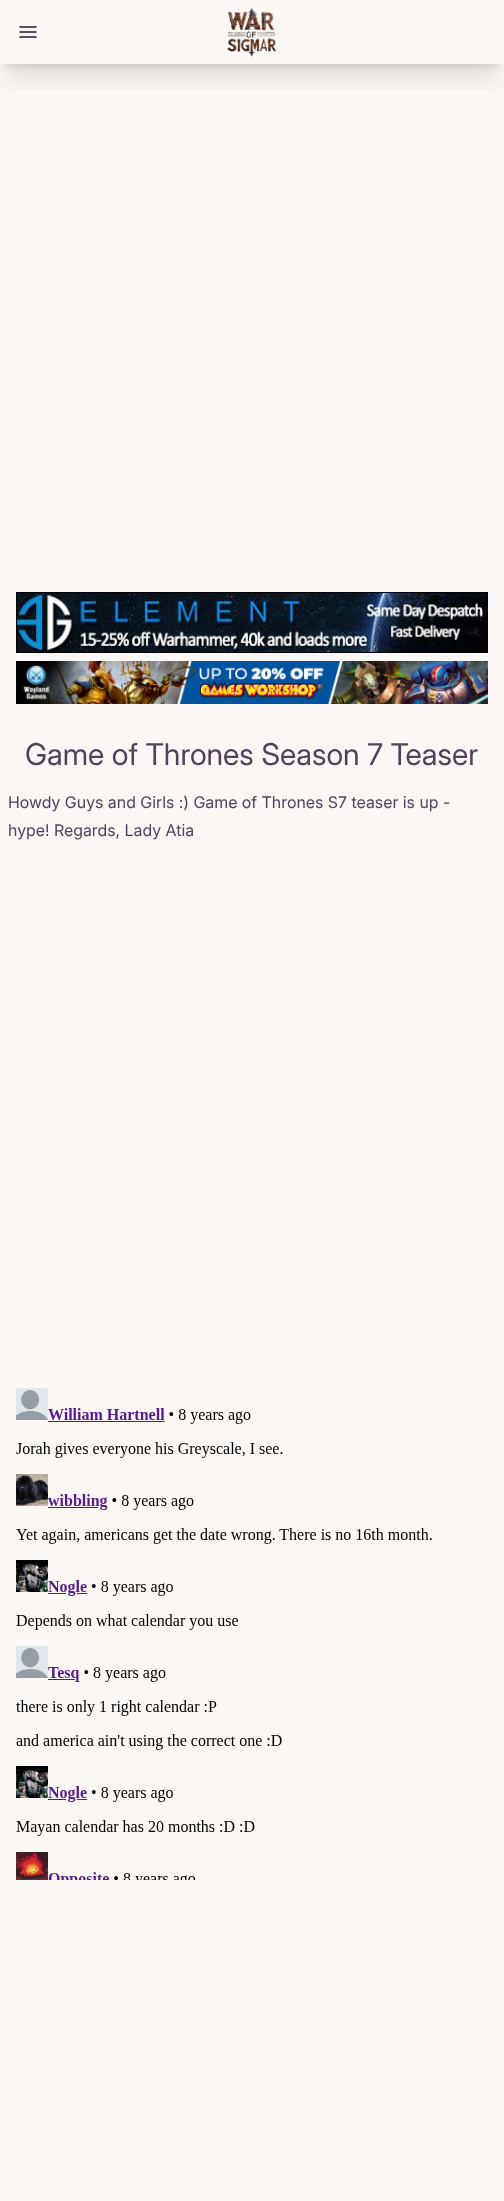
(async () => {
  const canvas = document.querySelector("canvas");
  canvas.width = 504;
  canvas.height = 2201;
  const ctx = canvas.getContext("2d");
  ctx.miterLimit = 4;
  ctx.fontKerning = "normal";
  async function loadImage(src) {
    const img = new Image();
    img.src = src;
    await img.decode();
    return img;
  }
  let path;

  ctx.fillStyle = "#faf7f5";
  ctx.fillRect(0, 0, 504, 2201);
  ctx.save();
  ctx.beginPath();
  ctx.rect(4, 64, 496, 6);
  ctx.clip();
  ctx.fillStyle = "rgba(0, 0, 0, 0.1)";
  ctx.filter = "blur(5px)";
  ctx.beginPath();
  ctx.rect(6, 14, 492, 52);
  ctx.fill();
  ctx.filter = "none";
  ctx.restore();
  ctx.save();
  ctx.beginPath();
  ctx.rect(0, 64, 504, 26);
  ctx.clip();
  ctx.fillStyle = "rgba(0, 0, 0, 0.1)";
  ctx.filter = "blur(12.5px)";
  ctx.beginPath();
  ctx.rect(5, 25, 494, 54);
  ctx.fill();
  ctx.filter = "none";
  ctx.restore();
  path = new Path2D("M20 27H36M20 32H36M20 37H36");
  ctx.strokeStyle = "#291334";
  ctx.lineWidth = 1.5;
  ctx.lineCap = "round";
  ctx.lineJoin = "round";
  ctx.stroke(path);
  ctx.drawImage(await loadImage("img/1.png"), 227, 7, 50, 50);
  ctx.drawImage(await loadImage("img/2.png"), 16, 592, 472, 61);
  ctx.drawImage(await loadImage("img/3.png"), 16, 661, 472, 43);
  ctx.drawImage(await loadImage("img/4.png"), 16, 1388, 416, 492);
  ctx.font = "30px Inter";
  ctx.fillStyle = "#53415b";
  ctx.fillText("Game of Thrones Season 7 Teaser", 25, 765);
  ctx.font = "16px 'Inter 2'";
  ctx.fillText("Howdy Guys and Girls :) Game of Thrones S7 teaser is up -", 8, 808);
  ctx.fillText("hype! Regards, Lady Atia", 8, 836);
})();
